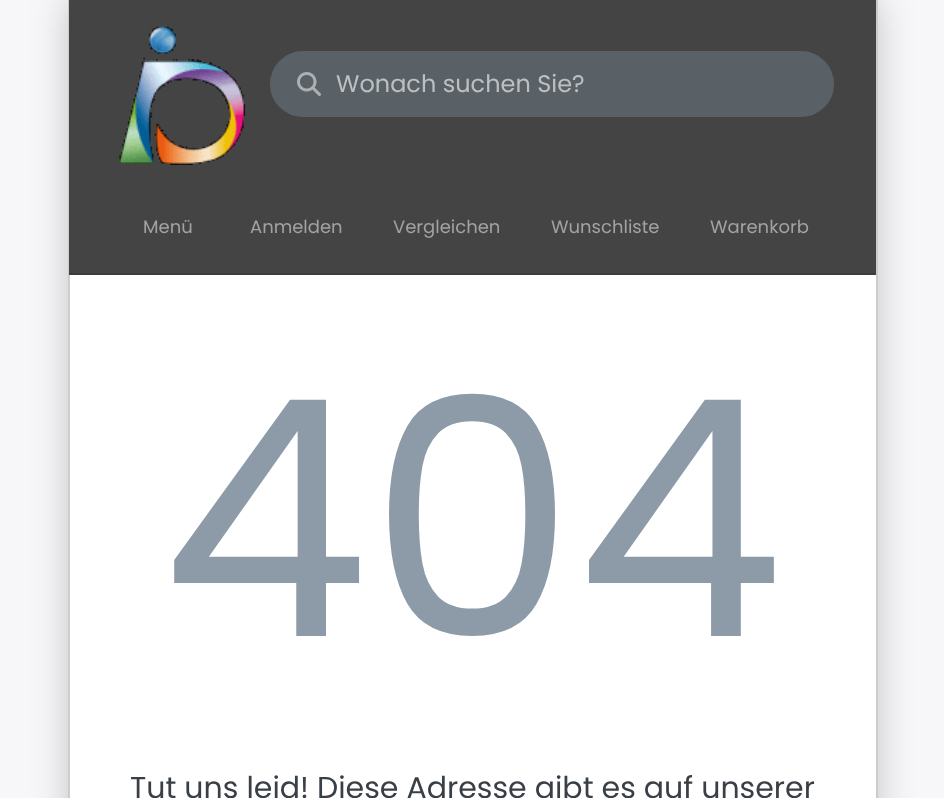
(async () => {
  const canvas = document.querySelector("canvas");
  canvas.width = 944;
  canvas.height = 798;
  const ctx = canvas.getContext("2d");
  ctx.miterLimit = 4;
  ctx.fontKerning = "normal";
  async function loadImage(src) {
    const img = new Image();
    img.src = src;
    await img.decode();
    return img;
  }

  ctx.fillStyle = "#f7f7f9";
  ctx.fillRect(0, 0, 944, 798);
  ctx.fillStyle = "rgba(0, 0, 0, 0.2)";
  ctx.filter = "blur(18px)";
  ctx.beginPath();
  ctx.rect(68, 0, 810, 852);
  ctx.fill();
  ctx.filter = "none";
  for (const [x, y, w, h, color] of [
    [70, 275, 806, 523, "#ffffff"],
    [876, 0, 2, 798, "#cccccc"],
    [68, 0, 2, 798, "#cccccc"],
    [69, 0, 807, 273, "#444444"],
    [69, 273, 807, 2, "#3c3c3c"],
  ]) {
    ctx.fillStyle = color;
    ctx.fillRect(x, y, w, h);
  }
  ctx.drawImage(await loadImage("img/1.png"), 119, 26, 127, 139);
  ctx.fillStyle = "#596167";
  ctx.beginPath();
  ctx.roundRect(271, 52, 562, 64, 32);
  ctx.fill();
  ctx.strokeStyle = "#596167";
  ctx.lineWidth = 2;
  ctx.stroke();
  ctx.drawImage(await loadImage("img/2.png"), 297, 72, 24, 24);
  ctx.font = "24px Poppins";
  ctx.fillStyle = "#bdc0c2";
  ctx.fillText("Wonach suchen Sie?", 336, 92);
  ctx.font = "18px Poppins";
  ctx.fillStyle = "#a2a2a2";
  for (const [text, x, y] of [
    ["Menü", 143, 233],
    ["Anmelden", 250, 233],
    ["Vergleichen", 393, 233],
    ["Wunschliste", 551, 233],
    ["Warenkorb", 710, 233],
  ]) {
    ctx.fillText(text, x, y);
  }
  ctx.font = "330px Poppins";
  ctx.fillStyle = "#8d9ba9";
  ctx.fillText("404", 161, 636);
  ctx.font = "30px Poppins";
  ctx.fillStyle = "#393f46";
  ctx.fillText("Tut uns leid! Diese Adresse gibt es auf unserer", 130, 798);
})();
